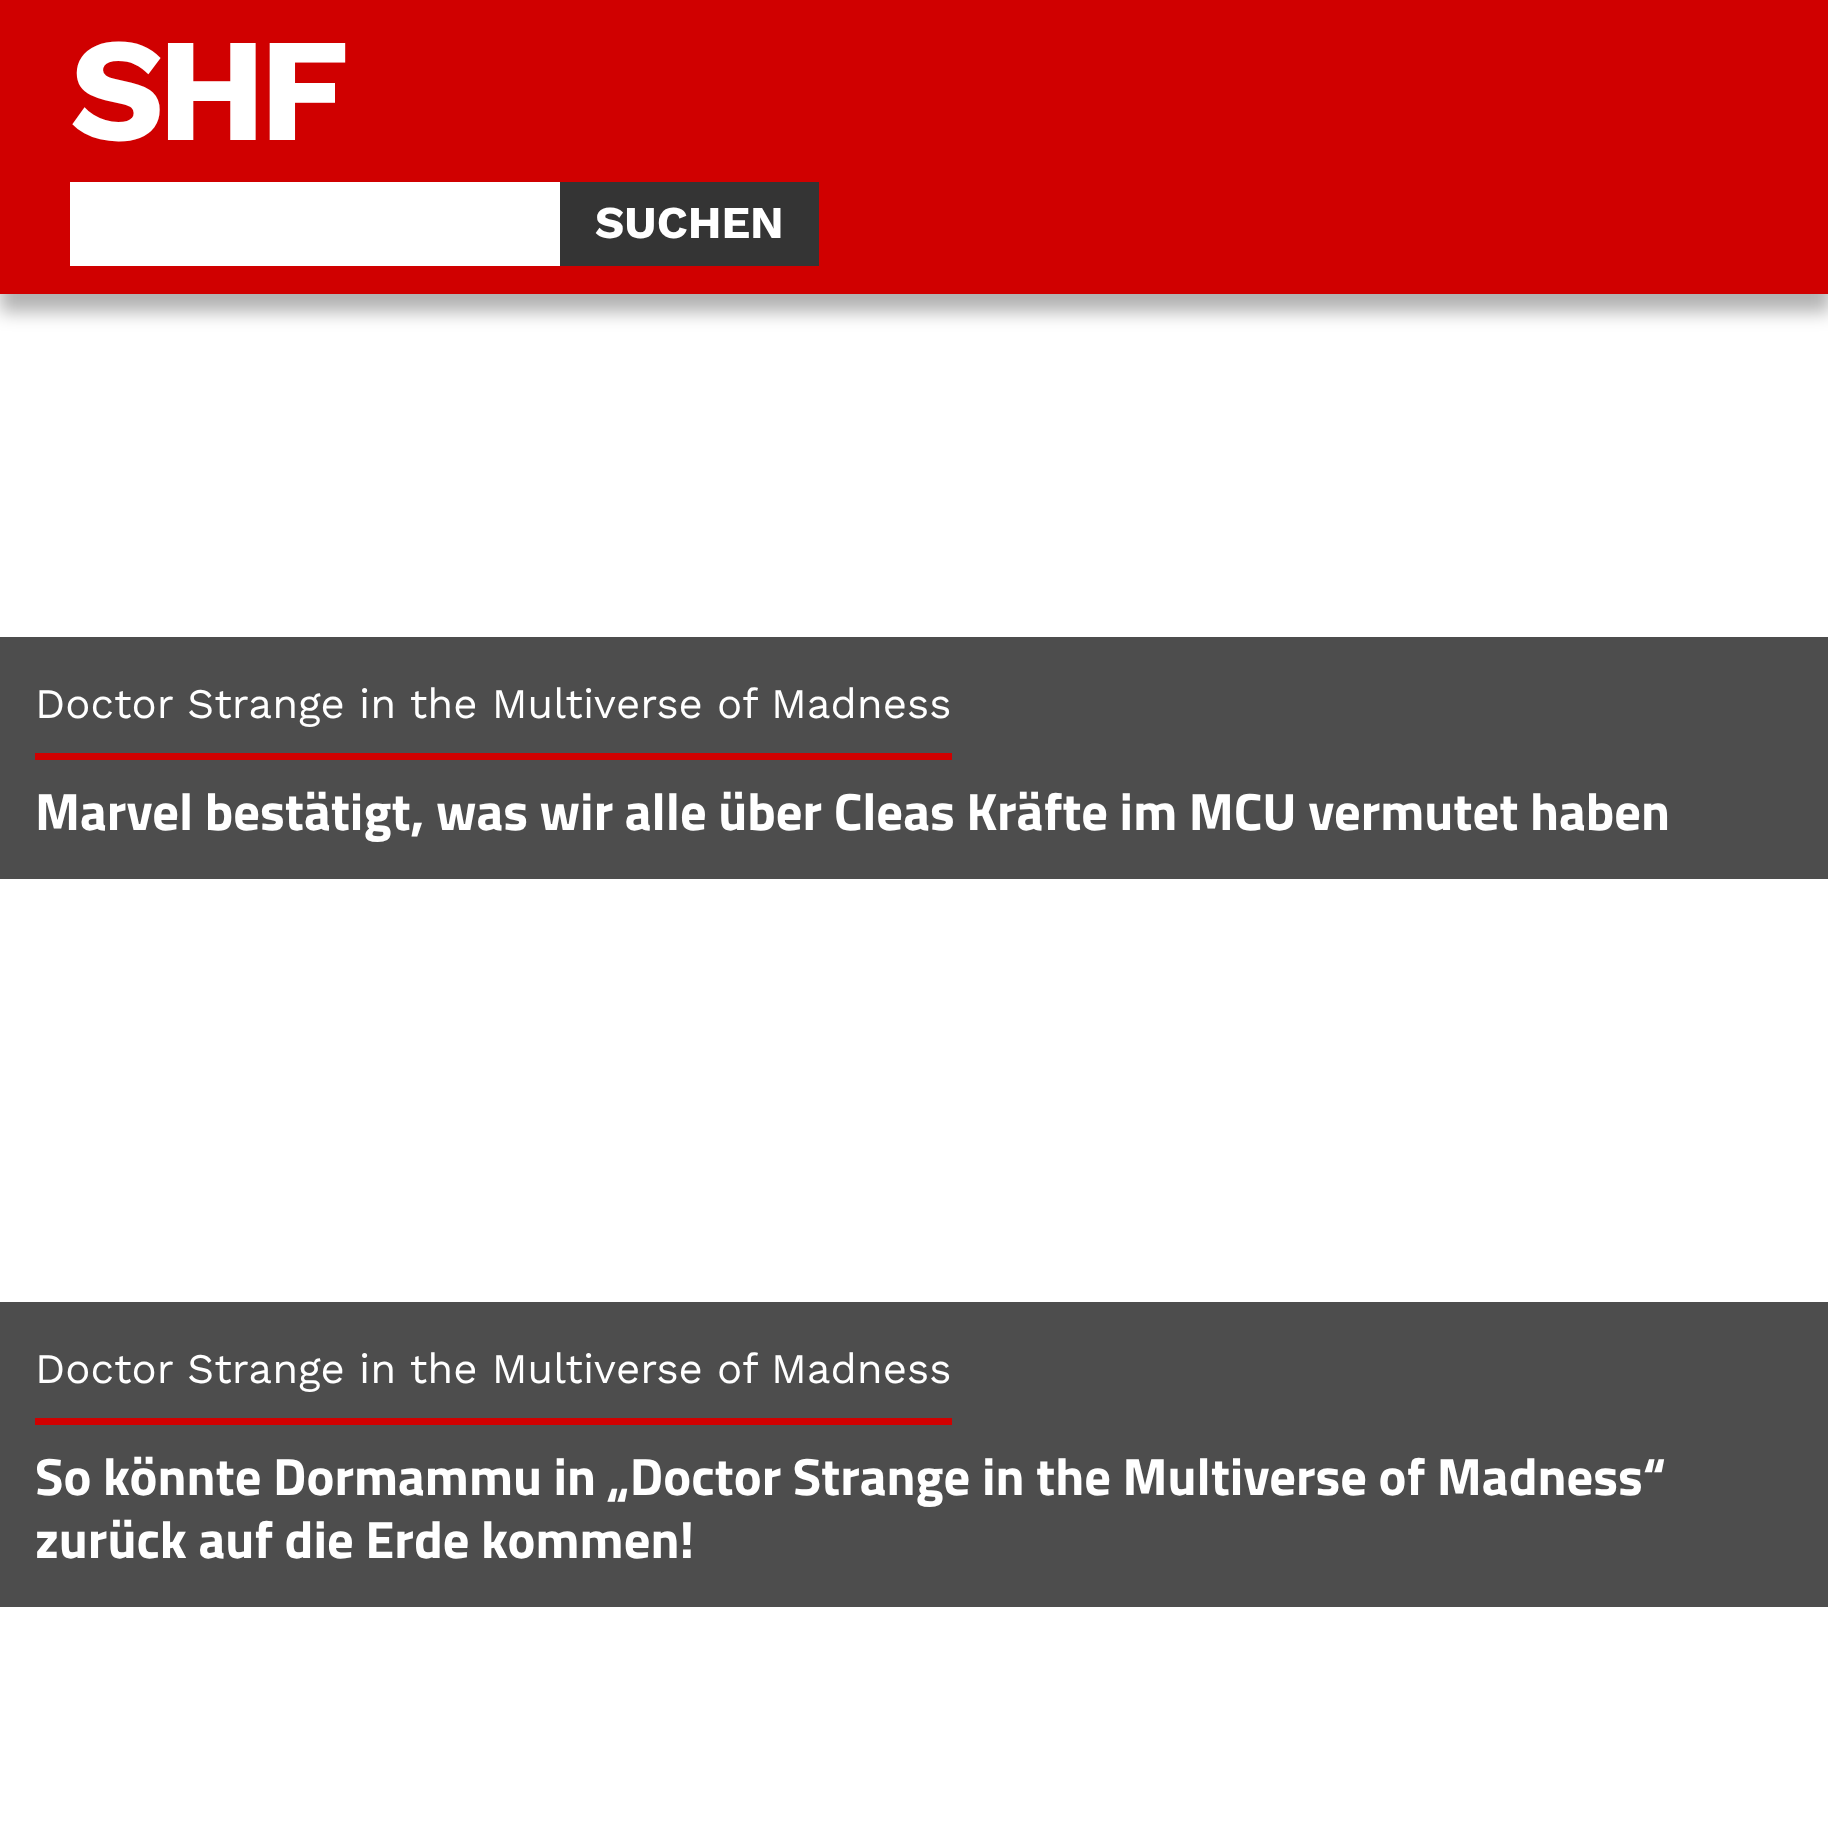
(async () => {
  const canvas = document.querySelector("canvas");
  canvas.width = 1828;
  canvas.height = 1834;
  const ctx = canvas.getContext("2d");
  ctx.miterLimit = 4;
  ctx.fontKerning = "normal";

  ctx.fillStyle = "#ffffff";
  ctx.fillRect(0, 0, 1828, 1834);
  ctx.fillStyle = "rgba(0, 0, 0, 0.3)";
  ctx.filter = "blur(9px)";
  ctx.beginPath();
  ctx.rect(0, 18, 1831, 294);
  ctx.fill();
  ctx.filter = "none";
  for (const [x, y, w, h, color] of [
    [0, 0, 1828, 294, "#d00000"],
    [70, 182, 490, 84, "#ffffff"],
    [560, 182, 259, 84, "#343434"],
    [0, 637, 1828, 242, "#4d4d4d"],
    [35, 753, 917, 7, "#d00000"],
    [0, 1302, 1828, 305, "#4d4d4d"],
    [35, 1418, 917, 7, "#d00000"],
  ]) {
    ctx.fillStyle = color;
    ctx.fillRect(x, y, w, h);
  }
  ctx.letterSpacing = "-7.5px";
  ctx.font = "bold 147px Work Sans";
  ctx.fillStyle = "#ffffff";
  ctx.fillText("SHF", 70, 140);
  ctx.letterSpacing = "0px";
  ctx.font = "bold 45.5px Work Sans";
  ctx.fillText("SUCHEN", 595, 238);
  ctx.font = "42px Work Sans";
  ctx.fillText("Doctor Strange in the Multiverse of Madness", 35, 718);
  ctx.font = "bold 52.5px Titillium Web";
  ctx.fillText("Marvel bestätigt, was wir alle über Cleas Kräfte im MCU vermutet haben", 35, 830);
  ctx.font = "42px Work Sans";
  ctx.fillText("Doctor Strange in the Multiverse of Madness", 35, 1383);
  ctx.font = "bold 52.5px Titillium Web";
  ctx.fillText("So könnte Dormammu in „Doctor Strange in the Multiverse of Madness“", 35, 1495);
  ctx.fillText("zurück auf die Erde kommen!", 35, 1558);
})();
